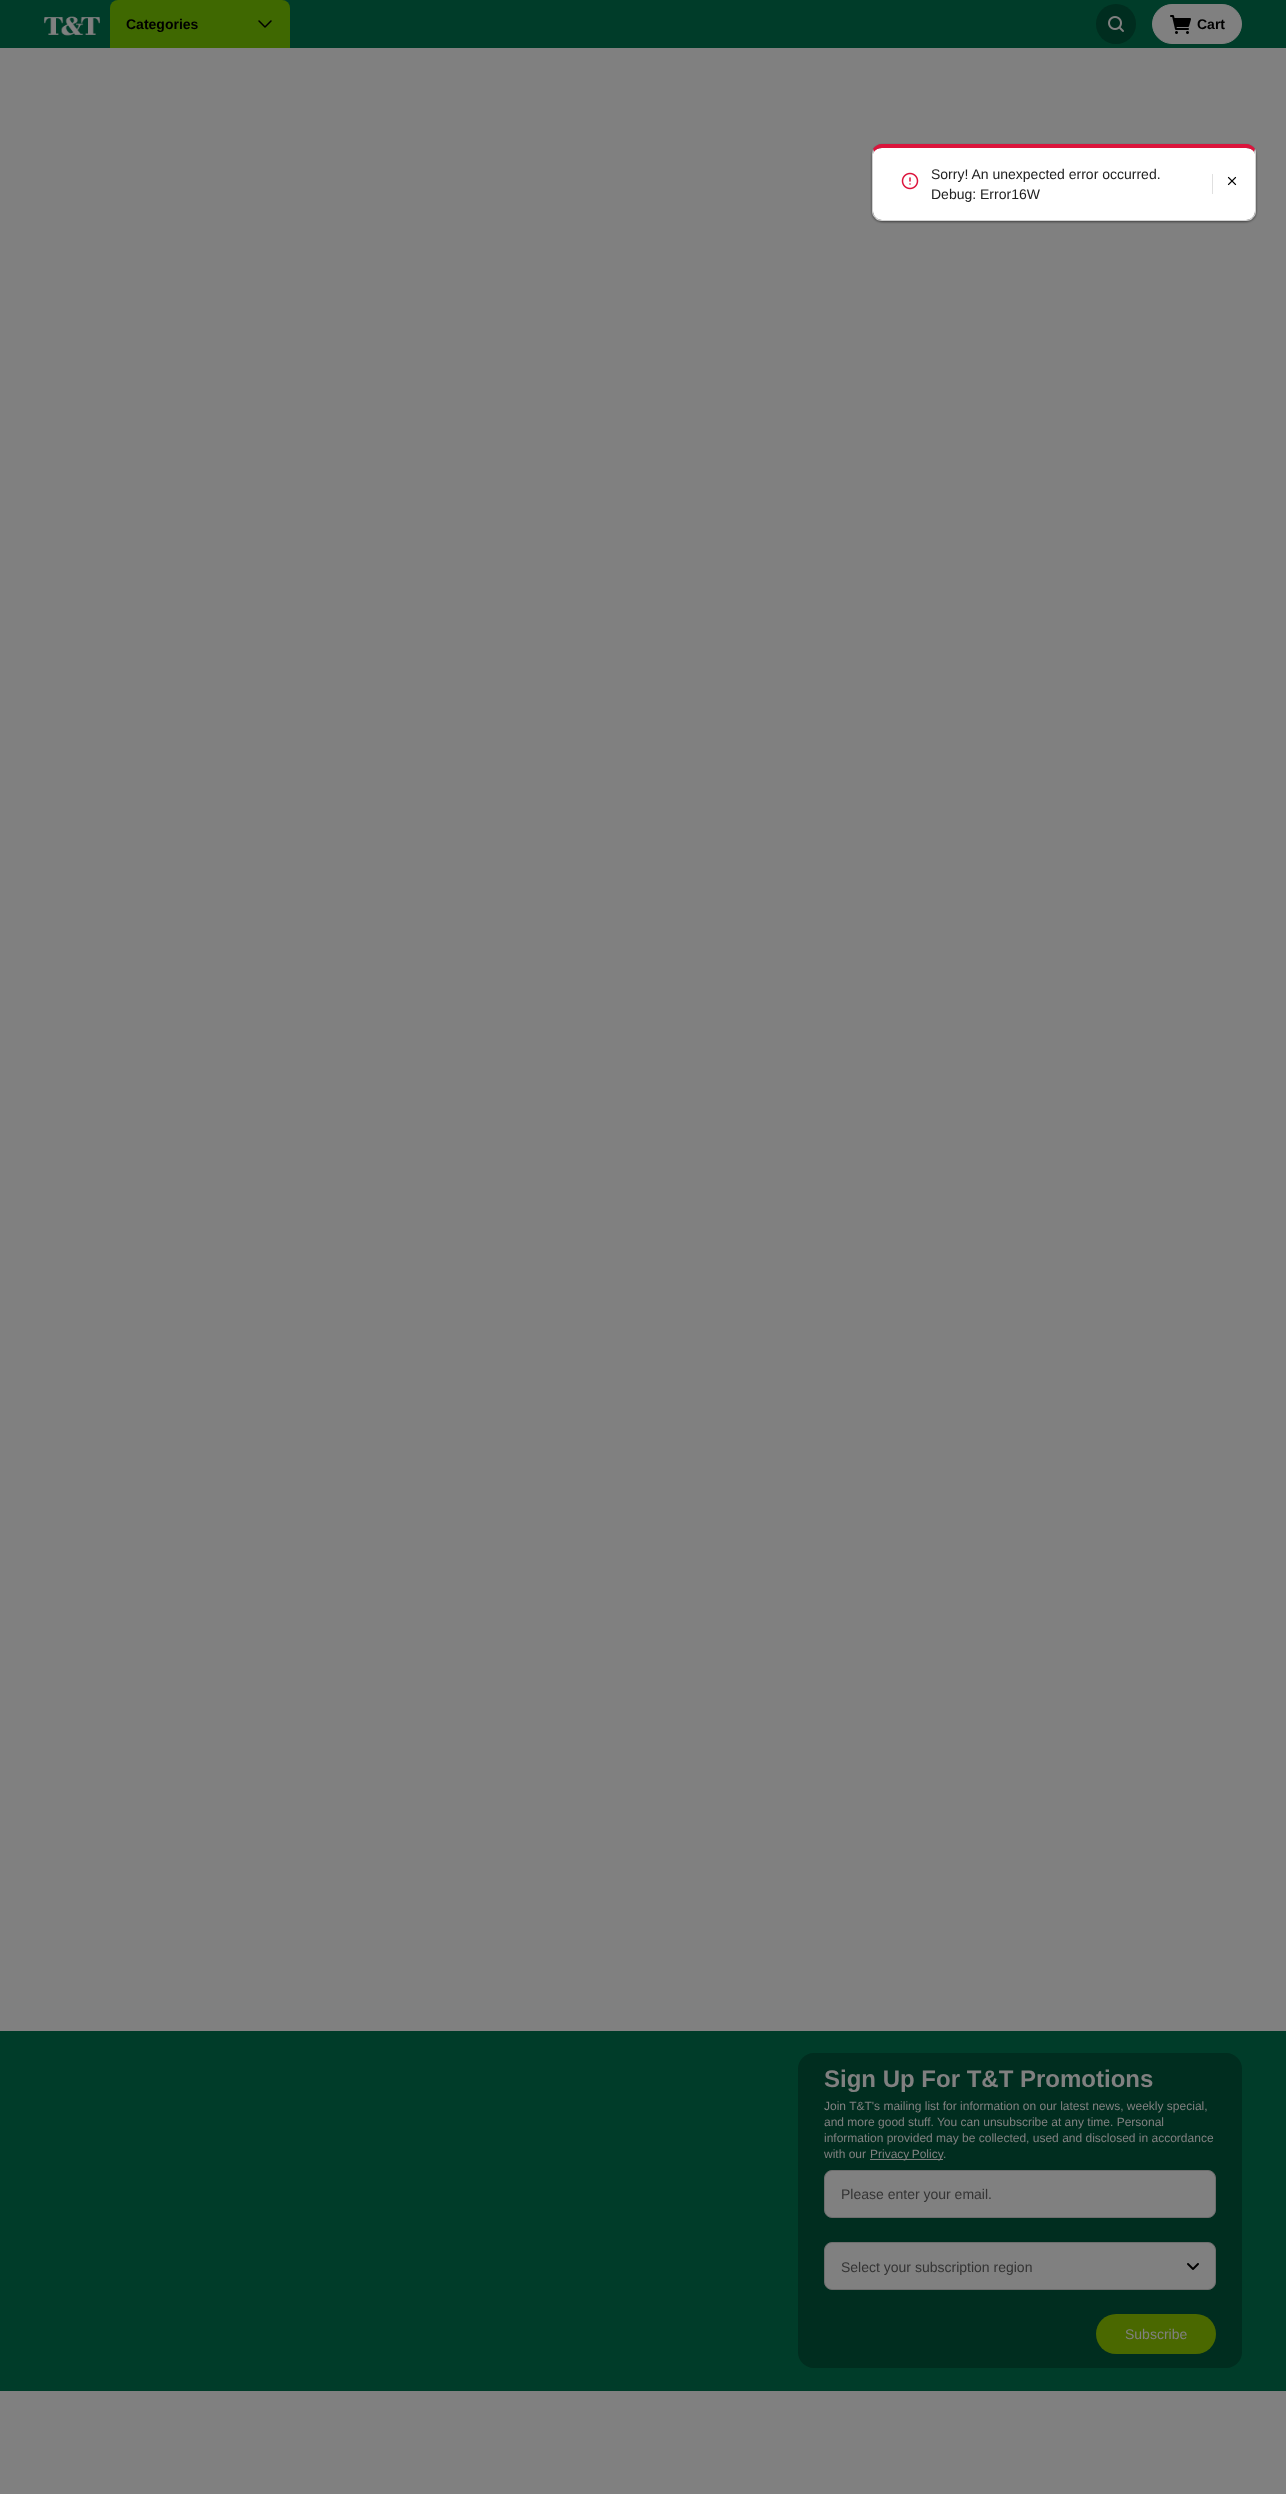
(async () => {
  const canvas = document.querySelector("canvas");
  canvas.width = 1286;
  canvas.height = 2494;
  const ctx = canvas.getContext("2d");
  ctx.miterLimit = 4;
  ctx.fontKerning = "normal";
  async function loadImage(src) {
    const img = new Image();
    img.src = src;
    await img.decode();
    return img;
  }
  let path;

  ctx.fillStyle = "#808080";
  ctx.fillRect(0, 0, 1286, 2494);
  ctx.fillStyle = "#003c29";
  ctx.fillRect(0, 0, 1286, 48);
  ctx.drawImage(await loadImage("img/1.png"), 44, 16, 56, 20);
  ctx.fillStyle = "#3f6801";
  ctx.beginPath();
  ctx.roundRect(110, 0, 180, 48, [8, 8, 0, 0]);
  ctx.fill();
  ctx.drawImage(await loadImage("img/2.png"), 258, 20, 14, 8);
  ctx.fillStyle = "#002d1f";
  ctx.beginPath();
  ctx.arc(1116, 24, 20, 0, Math.PI * 2);
  ctx.fill();
  ctx.drawImage(await loadImage("img/3.png"), 1108, 16, 16, 16);
  ctx.fillStyle = "#808080";
  ctx.beginPath();
  ctx.roundRect(1152.5, 4.5, 89, 39, 19.5);
  ctx.fill();
  ctx.strokeStyle = "#808080";
  ctx.stroke();
  ctx.drawImage(await loadImage("img/4.png"), 1170, 15, 21, 19);
  ctx.fillStyle = "#003c29";
  ctx.fillRect(0, 2031, 1286, 360);
  ctx.fillStyle = "#002d1f";
  ctx.beginPath();
  ctx.roundRect(798, 2053, 444, 315, 16);
  ctx.fill();
  ctx.fillStyle = "#808080";
  ctx.fillRect(870, 2159, 73, 1);
  ctx.beginPath();
  ctx.roundRect(824.5, 2170.5, 391, 47, 7.5);
  ctx.fill();
  ctx.strokeStyle = "#6d6d6d";
  ctx.stroke();
  ctx.beginPath();
  ctx.roundRect(824.5, 2242.5, 391, 47, 7.5);
  ctx.fill();
  ctx.stroke();
  ctx.drawImage(await loadImage("img/5.png"), 1187, 2263, 12, 7);
  ctx.fillStyle = "#4a6800";
  ctx.beginPath();
  ctx.roundRect(1096, 2314, 120, 40, 20);
  ctx.fill();
  ctx.fillStyle = "rgba(0, 0, 0, 0.5)";
  ctx.filter = "blur(1px)";
  ctx.beginPath();
  ctx.roundRect(872, 145, 384, 77, 10);
  ctx.fill();
  ctx.filter = "none";
  ctx.fillStyle = "#ffffff";
  path = new Path2D("M882 148H1246C1251 148 1255 151 1255 154V211C1255 216 1251 220 1246 220H882C877 220 873 216 873 211V154C873 151 877 148 882 148Z");
  ctx.fill(path);
  ctx.fillStyle = "#dc143c";
  path = new Path2D("M882 144C878 144 875 146 873 149L874 152C875 150 878 148 882 148H1246C1250 148 1253 150 1254 152L1255 149C1253 146 1250 144 1246 144Z");
  ctx.fill(path);
  ctx.fillStyle = "#d1d1d1";
  path = new Path2D("M1256 211V154C1256 152 1256 150 1255 149L1254 152L1255 154V213C1254 215 1254 216 1252 217L1253 218C1255 216 1256 214 1256 211Z");
  ctx.fill(path);
  path = new Path2D("M882 221H1246C1249 221 1252 220 1253 218L1252 217C1251 219 1248 220 1246 220H882C880 220 877 219 876 217L875 218C876 220 879 221 882 221Z");
  ctx.fill(path);
  path = new Path2D("M872 154V211C872 214 873 216 875 218L876 217C874 216 874 215 873 213V154L874 152L873 149Z");
  ctx.fill(path);
  ctx.drawImage(await loadImage("img/6.png"), 901, 172, 18, 18);
  ctx.fillStyle = "#e0e0e0";
  ctx.fillRect(1212, 174, 1, 20);
  ctx.drawImage(await loadImage("img/7.png"), 1227, 176, 10, 10);
  ctx.font = "bold 14px Liberation Sans";
  ctx.fillStyle = "#000000";
  ctx.fillText("Categories", 126, 29);
  ctx.fillText("Cart", 1197, 29);
  ctx.font = "bold 24px Liberation Sans";
  ctx.fillStyle = "#808080";
  ctx.fillText("Sign Up For T&T Promotions", 824, 2087);
  ctx.font = "12px Liberation Sans";
  for (const [text, x, y] of [
    ["Join T&T's mailing list for information on our latest news, weekly special,", 824, 2110],
    ["and more good stuff. You can unsubscribe at any time. Personal", 824, 2126],
    ["information provided may be collected, used and disclosed in accordance", 824, 2142],
    ["with our", 824, 2158],
  ]) {
    ctx.fillText(text, x, y);
  }
  ctx.wordSpacing = "-1px";
  ctx.fillText("Privacy Policy", 870, 2158);
  ctx.wordSpacing = "0px";
  ctx.fillText(".", 943, 2158);
  ctx.font = "14px Liberation Sans";
  ctx.fillStyle = "#333333";
  ctx.fillText("Please enter your email.", 841, 2199);
  ctx.fillText("Select your subscription region", 841, 2272);
  ctx.fillStyle = "#808080";
  ctx.fillText("Subscribe", 1125, 2339);
  ctx.fillStyle = "#212121";
  ctx.fillText("Sorry! An unexpected error occurred.", 931, 179);
  ctx.fillText("Debug: Error16W", 931, 199);
})();
